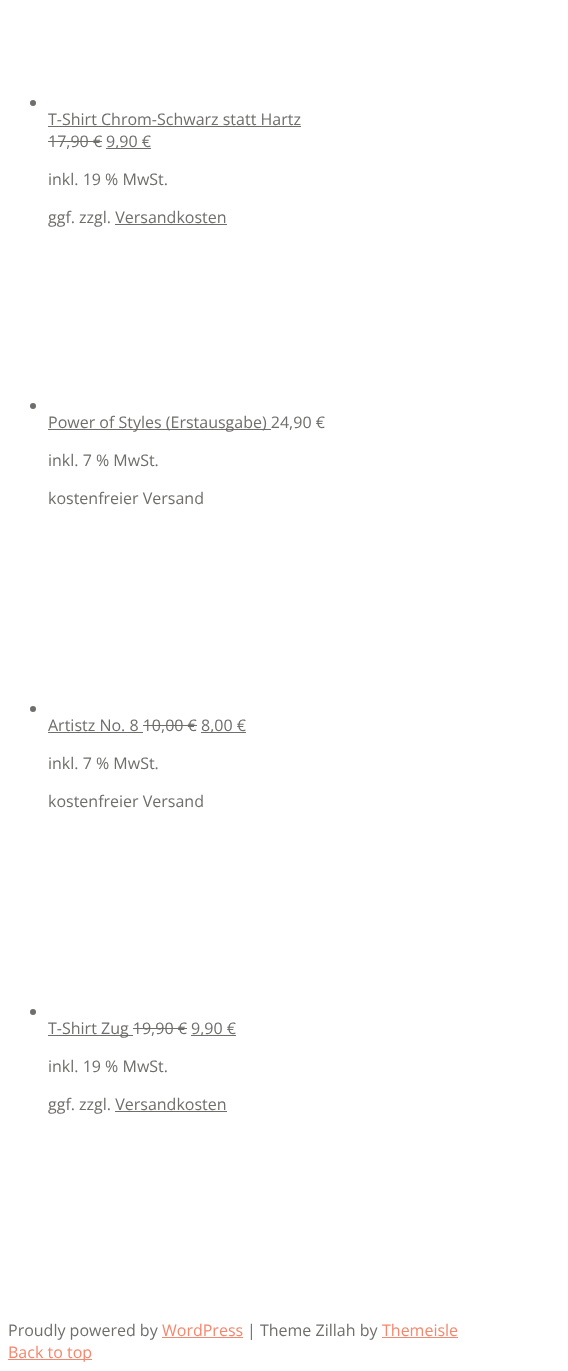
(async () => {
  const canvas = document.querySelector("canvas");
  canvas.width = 568;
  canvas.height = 1371;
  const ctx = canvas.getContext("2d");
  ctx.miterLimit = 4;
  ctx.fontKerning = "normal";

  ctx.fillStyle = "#ffffff";
  ctx.fillRect(0, 0, 568, 1371);
  ctx.fillStyle = "#6f6e6b";
  ctx.beginPath();
  ctx.arc(33, 103, 3, 0, Math.PI * 2);
  ctx.fill();
  for (const [x, y, w, h, color] of [
    [48, 126, 253, 1, "#6f6e6b"],
    [48, 141, 54, 1, "#6f6e6b"],
    [106, 148, 45, 1, "#6f6e6b"],
    [115, 224, 112, 1, "#6f6e6b"],
  ]) {
    ctx.fillStyle = color;
    ctx.fillRect(x, y, w, h);
  }
  ctx.beginPath();
  ctx.arc(33, 406, 3, 0, Math.PI * 2);
  ctx.fill();
  ctx.fillRect(48, 429, 223, 1);
  ctx.beginPath();
  ctx.arc(33, 709, 3, 0, Math.PI * 2);
  ctx.fill();
  for (const [x, y, w, h, color] of [
    [48, 732, 95, 1, "#6f6e6b"],
    [201, 732, 45, 1, "#6f6e6b"],
    [143, 725, 54, 1, "#6f6e6b"],
  ]) {
    ctx.fillStyle = color;
    ctx.fillRect(x, y, w, h);
  }
  ctx.beginPath();
  ctx.arc(33, 1012, 3, 0, Math.PI * 2);
  ctx.fill();
  for (const [x, y, w, h, color] of [
    [48, 1035, 85, 1, "#6f6e6b"],
    [191, 1035, 45, 1, "#6f6e6b"],
    [133, 1028, 54, 1, "#6f6e6b"],
    [115, 1111, 112, 1, "#6f6e6b"],
    [162, 1337, 81, 1, "#f5876e"],
    [382, 1337, 76, 1, "#f5876e"],
    [8, 1359, 84, 1, "#f5876e"],
  ]) {
    ctx.fillStyle = color;
    ctx.fillRect(x, y, w, h);
  }
  ctx.font = "16px Open Sans";
  ctx.fillStyle = "#6f6e6b";
  for (const [text, x, y] of [
    ["T-Shirt Chrom-Schwarz statt Hartz", 48, 125],
    ["17,90 €", 48, 147],
    ["9,90 €", 106, 147],
    ["inkl. 19 % MwSt.", 48, 185],
    ["ggf. zzgl. Versandkosten", 48, 223],
    ["Power of Styles (Erstausgabe) 24,90 €", 48, 428],
    ["inkl. 7 % MwSt.", 48, 466],
    ["kostenfreier Versand", 48, 504],
    ["Artistz No. 8 10,00 €", 48, 731],
    ["8,00 €", 201, 731],
    ["inkl. 7 % MwSt.", 48, 769],
    ["kostenfreier Versand", 48, 807],
    ["T-Shirt Zug 19,90 €", 48, 1034],
    ["9,90 €", 191, 1034],
    ["inkl. 19 % MwSt.", 48, 1072],
    ["ggf. zzgl. Versandkosten", 48, 1110],
    ["Proudly powered by", 8, 1336],
  ]) {
    ctx.fillText(text, x, y);
  }
  ctx.fillStyle = "#f5876e";
  ctx.fillText("WordPress", 162, 1336);
  ctx.fillStyle = "#6f6e6b";
  ctx.fillText("| Theme Zillah by", 247, 1336);
  ctx.fillStyle = "#f5876e";
  ctx.fillText("Themeisle", 382, 1336);
  ctx.fillText("Back to top", 8, 1358);
})();
